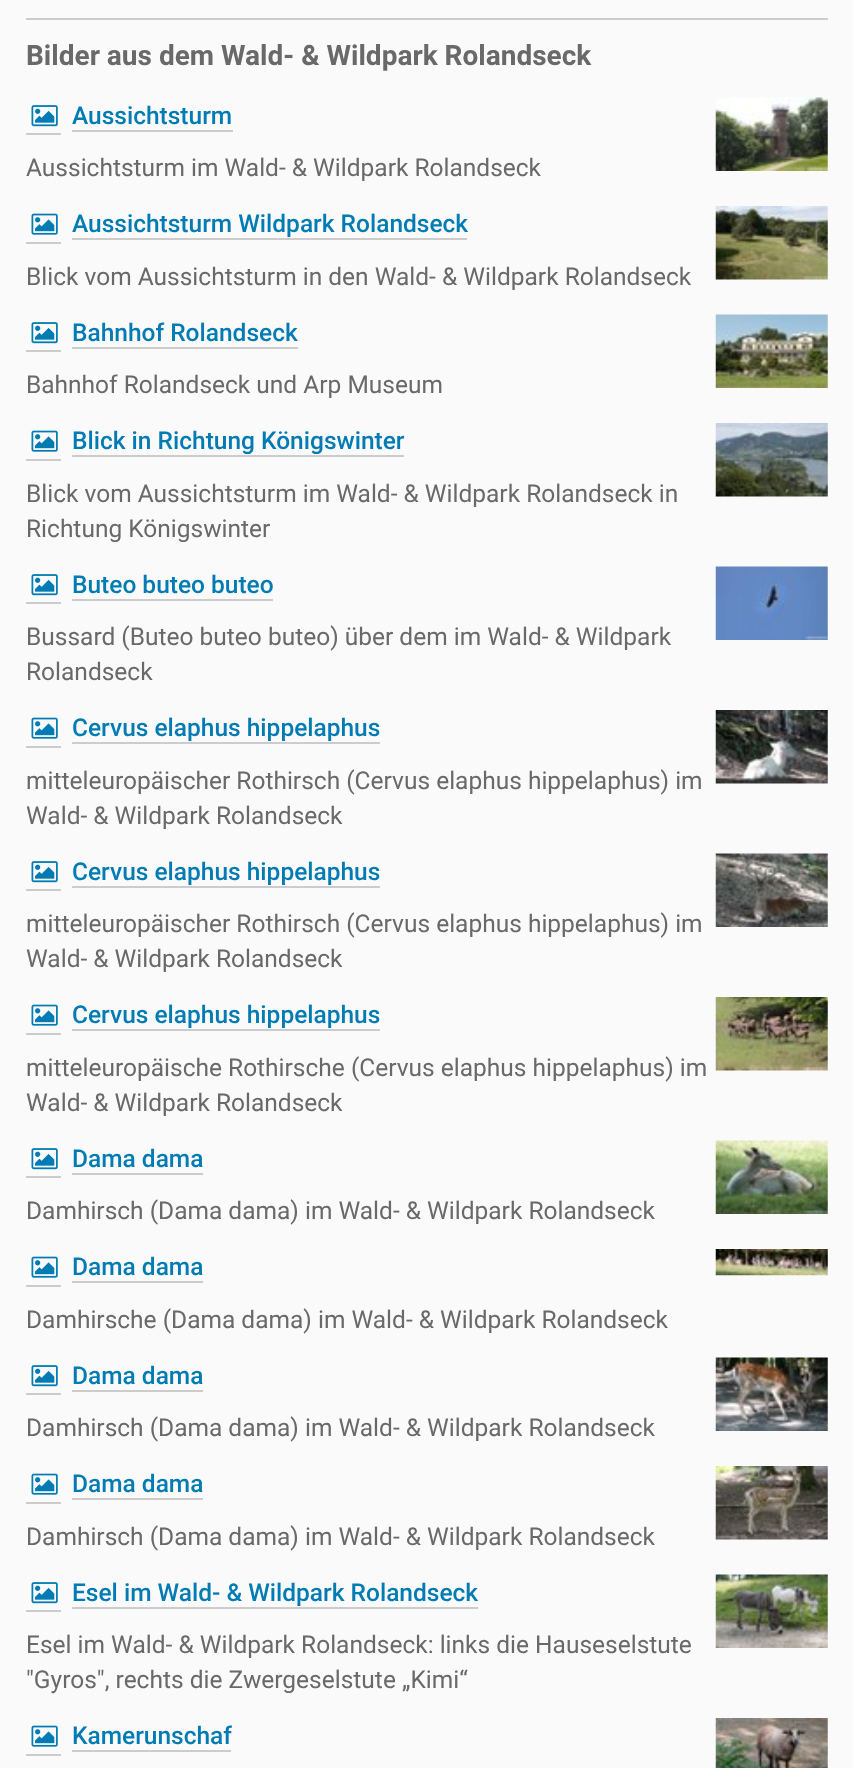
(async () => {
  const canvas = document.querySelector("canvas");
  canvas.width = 853;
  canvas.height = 1768;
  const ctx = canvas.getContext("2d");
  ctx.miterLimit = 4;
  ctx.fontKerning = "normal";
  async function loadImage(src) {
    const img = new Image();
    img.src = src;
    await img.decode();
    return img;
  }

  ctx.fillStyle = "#fafafa";
  ctx.fillRect(0, 0, 853, 1768);
  for (const [x, y, w, h, color] of [
    [26, 18, 802, 2, "#cccccc"],
    [26, 133, 35, 2, "#cccccc"],
    [72, 130, 161, 2, "#cccccc"],
  ]) {
    ctx.fillStyle = color;
    ctx.fillRect(x, y, w, h);
  }
  ctx.drawImage(await loadImage("img/1.png"), 31, 105, 27, 22);
  ctx.drawImage(await loadImage("img/2.png"), 715, 97, 113, 74);
  ctx.fillRect(26, 242, 35, 2);
  ctx.fillRect(72, 238, 395, 2);
  ctx.drawImage(await loadImage("img/3.png"), 31, 213, 27, 22);
  ctx.drawImage(await loadImage("img/4.png"), 715, 206, 113, 74);
  ctx.fillRect(26, 350, 35, 2);
  ctx.fillRect(72, 347, 226, 2);
  ctx.drawImage(await loadImage("img/1.png"), 31, 322, 27, 22);
  ctx.drawImage(await loadImage("img/5.png"), 715, 314, 113, 74);
  ctx.fillRect(26, 459, 35, 2);
  ctx.fillRect(72, 455, 332, 2);
  ctx.drawImage(await loadImage("img/3.png"), 31, 430, 27, 22);
  ctx.drawImage(await loadImage("img/6.png"), 715, 423, 113, 74);
  ctx.fillRect(26, 602, 35, 2);
  ctx.fillRect(72, 599, 201, 2);
  ctx.drawImage(await loadImage("img/1.png"), 31, 574, 27, 22);
  ctx.drawImage(await loadImage("img/7.png"), 715, 566, 113, 74);
  ctx.fillRect(26, 746, 35, 2);
  ctx.fillRect(72, 742, 308, 2);
  ctx.drawImage(await loadImage("img/3.png"), 31, 717, 27, 22);
  ctx.drawImage(await loadImage("img/8.png"), 715, 710, 113, 74);
  ctx.fillRect(26, 889, 35, 2);
  ctx.fillRect(72, 886, 308, 2);
  ctx.drawImage(await loadImage("img/1.png"), 31, 861, 27, 22);
  ctx.drawImage(await loadImage("img/9.png"), 715, 853, 113, 74);
  ctx.fillRect(26, 1033, 35, 2);
  ctx.fillRect(72, 1029, 308, 2);
  ctx.drawImage(await loadImage("img/3.png"), 31, 1004, 27, 22);
  ctx.drawImage(await loadImage("img/10.png"), 715, 997, 113, 74);
  ctx.fillRect(26, 1176, 35, 2);
  ctx.fillRect(72, 1173, 131, 2);
  ctx.drawImage(await loadImage("img/1.png"), 31, 1148, 27, 22);
  ctx.drawImage(await loadImage("img/11.png"), 715, 1140, 113, 74);
  ctx.fillRect(26, 1285, 35, 2);
  ctx.fillRect(72, 1281, 131, 2);
  ctx.drawImage(await loadImage("img/3.png"), 31, 1256, 27, 22);
  ctx.drawImage(await loadImage("img/12.png"), 715, 1249, 113, 27);
  ctx.fillRect(26, 1393, 35, 2);
  ctx.fillRect(72, 1390, 131, 2);
  ctx.drawImage(await loadImage("img/1.png"), 31, 1365, 27, 22);
  ctx.drawImage(await loadImage("img/13.png"), 715, 1357, 113, 74);
  ctx.fillRect(26, 1502, 35, 2);
  ctx.fillRect(72, 1498, 131, 2);
  ctx.drawImage(await loadImage("img/3.png"), 31, 1473, 27, 22);
  ctx.drawImage(await loadImage("img/14.png"), 715, 1466, 113, 74);
  ctx.fillRect(26, 1610, 35, 2);
  ctx.fillRect(72, 1607, 406, 2);
  ctx.drawImage(await loadImage("img/1.png"), 31, 1582, 27, 22);
  ctx.drawImage(await loadImage("img/15.png"), 715, 1574, 113, 74);
  ctx.fillRect(26, 1754, 35, 2);
  ctx.fillRect(72, 1750, 159, 2);
  ctx.drawImage(await loadImage("img/3.png"), 31, 1725, 27, 22);
  ctx.drawImage(await loadImage("img/16.png"), 715, 1718, 113, 50);
  ctx.font = "bold 28px Roboto";
  ctx.fillStyle = "#696969";
  ctx.fillText("Bilder aus dem Wald- & Wildpark Rolandseck", 26, 65);
  ctx.font = "500 24.5px Roboto";
  ctx.fillStyle = "#007bb3";
  ctx.fillText("Aussichtsturm", 72, 124);
  ctx.font = "24.5px Roboto";
  ctx.fillStyle = "#696969";
  ctx.fillText("Aussichtsturm im Wald- & Wildpark Rolandseck", 26, 176);
  ctx.font = "500 24.5px Roboto";
  ctx.fillStyle = "#007bb3";
  ctx.fillText("Aussichtsturm Wildpark Rolandseck", 72, 232);
  ctx.font = "24.5px Roboto";
  ctx.fillStyle = "#696969";
  ctx.fillText("Blick vom Aussichtsturm in den Wald- & Wildpark Rolandseck", 26, 285);
  ctx.font = "500 24.5px Roboto";
  ctx.fillStyle = "#007bb3";
  ctx.fillText("Bahnhof Rolandseck", 72, 341);
  ctx.font = "24.5px Roboto";
  ctx.fillStyle = "#696969";
  ctx.fillText("Bahnhof Rolandseck und Arp Museum", 26, 393);
  ctx.font = "500 24.5px Roboto";
  ctx.fillStyle = "#007bb3";
  ctx.fillText("Blick in Richtung Königswinter", 72, 449);
  ctx.font = "24.5px Roboto";
  ctx.fillStyle = "#696969";
  ctx.fillText("Blick vom Aussichtsturm im Wald- & Wildpark Rolandseck in", 26, 502);
  ctx.fillText("Richtung Königswinter", 26, 537);
  ctx.font = "500 24.5px Roboto";
  ctx.fillStyle = "#007bb3";
  ctx.fillText("Buteo buteo buteo", 72, 593);
  ctx.font = "24.5px Roboto";
  ctx.fillStyle = "#696969";
  ctx.fillText("Bussard (Buteo buteo buteo) über dem im Wald- & Wildpark", 26, 645);
  ctx.fillText("Rolandseck", 26, 680);
  ctx.font = "500 24.5px Roboto";
  ctx.fillStyle = "#007bb3";
  ctx.fillText("Cervus elaphus hippelaphus", 72, 736);
  ctx.font = "24.5px Roboto";
  ctx.fillStyle = "#696969";
  ctx.fillText("mitteleuropäischer Rothirsch (Cervus elaphus hippelaphus) im", 26, 789);
  ctx.fillText("Wald- & Wildpark Rolandseck", 26, 824);
  ctx.font = "500 24.5px Roboto";
  ctx.fillStyle = "#007bb3";
  ctx.fillText("Cervus elaphus hippelaphus", 72, 880);
  ctx.font = "24.5px Roboto";
  ctx.fillStyle = "#696969";
  ctx.fillText("mitteleuropäischer Rothirsch (Cervus elaphus hippelaphus) im", 26, 932);
  ctx.fillText("Wald- & Wildpark Rolandseck", 26, 967);
  ctx.font = "500 24.5px Roboto";
  ctx.fillStyle = "#007bb3";
  ctx.fillText("Cervus elaphus hippelaphus", 72, 1023);
  ctx.font = "24.5px Roboto";
  ctx.fillStyle = "#696969";
  ctx.fillText("mitteleuropäische Rothirsche (Cervus elaphus hippelaphus) im", 26, 1076);
  ctx.fillText("Wald- & Wildpark Rolandseck", 26, 1111);
  ctx.font = "500 24.5px Roboto";
  ctx.fillStyle = "#007bb3";
  ctx.fillText("Dama dama", 72, 1167);
  ctx.font = "24.5px Roboto";
  ctx.fillStyle = "#696969";
  ctx.fillText("Damhirsch (Dama dama) im Wald- & Wildpark Rolandseck", 26, 1219);
  ctx.font = "500 24.5px Roboto";
  ctx.fillStyle = "#007bb3";
  ctx.fillText("Dama dama", 72, 1275);
  ctx.font = "24.5px Roboto";
  ctx.fillStyle = "#696969";
  ctx.fillText("Damhirsche (Dama dama) im Wald- & Wildpark Rolandseck", 26, 1328);
  ctx.font = "500 24.5px Roboto";
  ctx.fillStyle = "#007bb3";
  ctx.fillText("Dama dama", 72, 1384);
  ctx.font = "24.5px Roboto";
  ctx.fillStyle = "#696969";
  ctx.fillText("Damhirsch (Dama dama) im Wald- & Wildpark Rolandseck", 26, 1436);
  ctx.font = "500 24.5px Roboto";
  ctx.fillStyle = "#007bb3";
  ctx.fillText("Dama dama", 72, 1492);
  ctx.font = "24.5px Roboto";
  ctx.fillStyle = "#696969";
  ctx.fillText("Damhirsch (Dama dama) im Wald- & Wildpark Rolandseck", 26, 1545);
  ctx.font = "500 24.5px Roboto";
  ctx.fillStyle = "#007bb3";
  ctx.fillText("Esel im Wald- & Wildpark Rolandseck", 72, 1601);
  ctx.font = "24.5px Roboto";
  ctx.fillStyle = "#696969";
  ctx.fillText("Esel im Wald- & Wildpark Rolandseck: links die Hauseselstute", 26, 1653);
  ctx.fillText("\"Gyros\", rechts die Zwergeselstute „Kimi“", 26, 1688);
  ctx.font = "500 24.5px Roboto";
  ctx.fillStyle = "#007bb3";
  ctx.fillText("Kamerunschaf", 72, 1744);
})();
